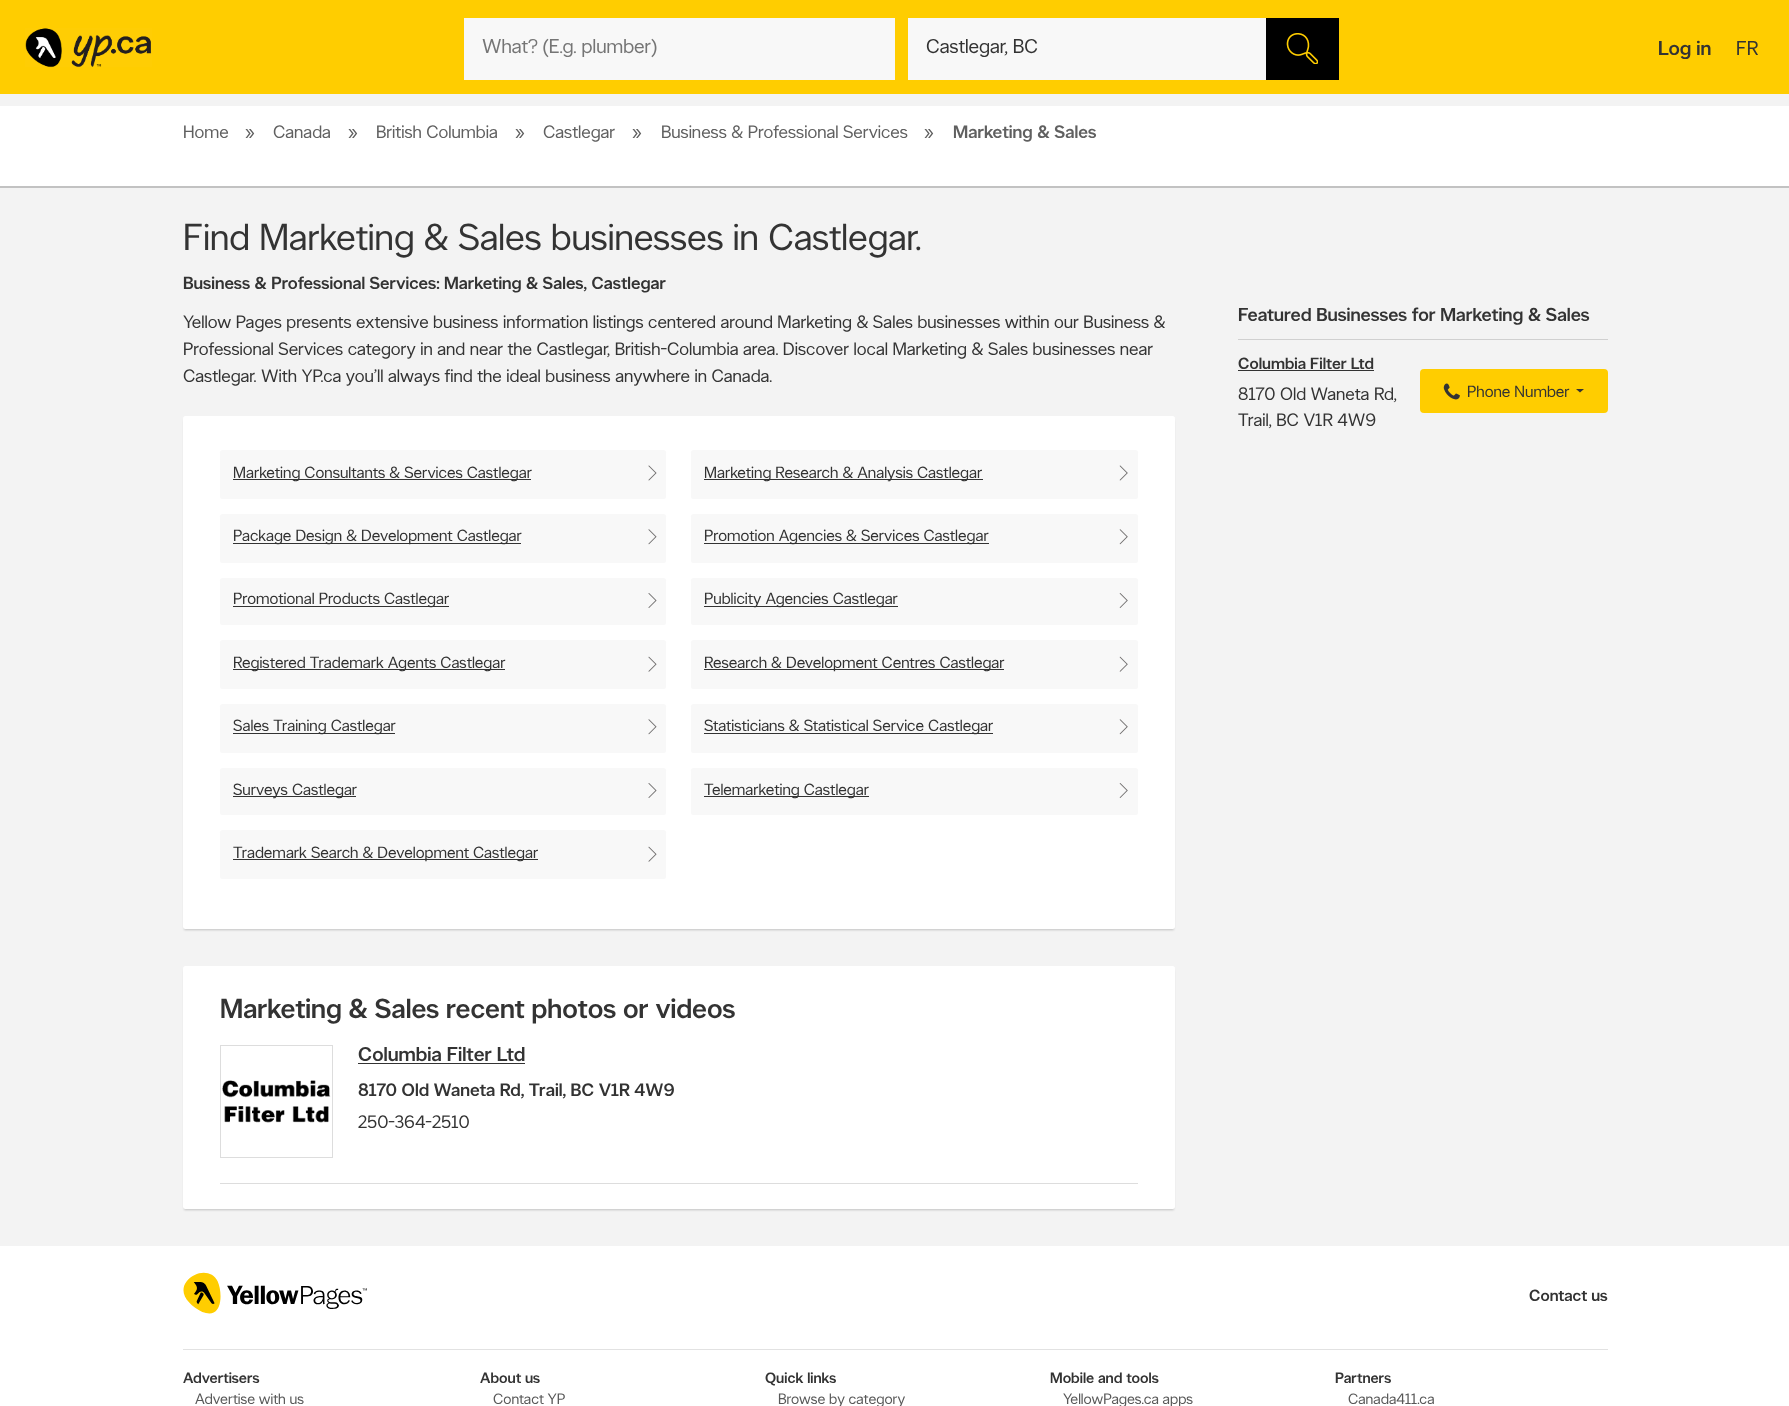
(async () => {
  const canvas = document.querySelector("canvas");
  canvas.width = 1789;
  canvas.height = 1406;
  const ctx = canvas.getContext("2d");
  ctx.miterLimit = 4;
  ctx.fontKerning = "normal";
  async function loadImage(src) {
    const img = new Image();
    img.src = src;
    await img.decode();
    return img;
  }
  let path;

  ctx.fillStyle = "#f3f3f3";
  ctx.fillRect(0, 0, 1789, 1406);
  ctx.fillStyle = "#ffcd00";
  ctx.fillRect(0, 0, 1789, 94);
  ctx.drawImage(await loadImage("img/1.png"), 25, 28, 127, 40);
  for (const [x, y, w, h, color] of [
    [464, 18, 431, 62, "#f8f8f8"],
    [908, 18, 358, 62, "#f8f8f8"],
    [1266, 18, 73, 62, "#000000"],
  ]) {
    ctx.fillStyle = color;
    ctx.fillRect(x, y, w, h);
  }
  ctx.drawImage(await loadImage("img/2.png"), 1286, 33, 32, 31);
  ctx.fillStyle = "rgba(0, 0, 0, 0.2)";
  ctx.filter = "blur(0.5px)";
  ctx.beginPath();
  ctx.rect(0, 108, 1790, 80);
  ctx.fill();
  ctx.filter = "none";
  ctx.fillStyle = "#ffffff";
  ctx.fillRect(0, 106, 1789, 80);
  ctx.fillStyle = "rgba(0, 0, 0, 0.2)";
  ctx.filter = "blur(1px)";
  ctx.beginPath();
  ctx.roundRect(184, 420, 990, 510, 1);
  ctx.fill();
  ctx.filter = "none";
  ctx.fillStyle = "#ffffff";
  ctx.beginPath();
  ctx.roundRect(183, 416, 992, 513, 2.5);
  ctx.fill();
  ctx.fillStyle = "#f8f8f8";
  ctx.beginPath();
  ctx.roundRect(220, 450, 446, 49, 2.5);
  ctx.fill();
  ctx.fillStyle = "#333333";
  ctx.fillRect(233, 479, 298, 1);
  ctx.drawImage(await loadImage("img/3.png"), 648, 465, 9, 16);
  ctx.fillStyle = "#f8f8f8";
  ctx.beginPath();
  ctx.roundRect(691, 450, 447, 49, 2.5);
  ctx.fill();
  ctx.fillStyle = "#333333";
  ctx.fillRect(704, 479, 279, 1);
  ctx.drawImage(await loadImage("img/4.png"), 1119, 465, 9, 16);
  ctx.fillStyle = "#f8f8f8";
  ctx.beginPath();
  ctx.roundRect(220, 514, 446, 49, 2.5);
  ctx.fill();
  ctx.fillStyle = "#333333";
  ctx.fillRect(233, 543, 288, 1);
  ctx.drawImage(await loadImage("img/5.png"), 648, 529, 9, 16);
  ctx.fillStyle = "#f8f8f8";
  ctx.beginPath();
  ctx.roundRect(691, 514, 447, 49, 2.5);
  ctx.fill();
  ctx.fillStyle = "#333333";
  ctx.fillRect(704, 543, 285, 1);
  ctx.drawImage(await loadImage("img/6.png"), 1119, 529, 9, 16);
  ctx.fillStyle = "#f8f8f8";
  ctx.beginPath();
  ctx.roundRect(220, 578, 446, 47, 2.5);
  ctx.fill();
  ctx.fillStyle = "#333333";
  ctx.fillRect(233, 606, 216, 1);
  ctx.drawImage(await loadImage("img/7.png"), 648, 593, 9, 15);
  ctx.fillStyle = "#f8f8f8";
  ctx.beginPath();
  ctx.roundRect(691, 578, 447, 47, 2.5);
  ctx.fill();
  ctx.fillStyle = "#333333";
  ctx.fillRect(704, 606, 194, 1);
  ctx.drawImage(await loadImage("img/8.png"), 1119, 593, 9, 15);
  ctx.fillStyle = "#f8f8f8";
  ctx.beginPath();
  ctx.roundRect(220, 640, 446, 49, 2.5);
  ctx.fill();
  ctx.fillStyle = "#333333";
  ctx.fillRect(233, 669, 272, 1);
  ctx.drawImage(await loadImage("img/9.png"), 648, 656, 9, 16);
  ctx.fillStyle = "#f8f8f8";
  ctx.beginPath();
  ctx.roundRect(691, 640, 447, 49, 2.5);
  ctx.fill();
  ctx.fillStyle = "#333333";
  ctx.fillRect(704, 669, 300, 1);
  ctx.drawImage(await loadImage("img/10.png"), 1119, 656, 9, 16);
  ctx.fillStyle = "#f8f8f8";
  ctx.beginPath();
  ctx.roundRect(220, 704, 446, 49, 2.5);
  ctx.fill();
  ctx.fillStyle = "#333333";
  ctx.fillRect(233, 733, 162, 1);
  ctx.drawImage(await loadImage("img/5.png"), 648, 719, 9, 16);
  ctx.fillStyle = "#f8f8f8";
  ctx.beginPath();
  ctx.roundRect(691, 704, 447, 49, 2.5);
  ctx.fill();
  ctx.fillStyle = "#333333";
  ctx.fillRect(704, 733, 289, 1);
  ctx.drawImage(await loadImage("img/6.png"), 1119, 719, 9, 16);
  ctx.fillStyle = "#f8f8f8";
  ctx.beginPath();
  ctx.roundRect(220, 768, 446, 47, 2.5);
  ctx.fill();
  ctx.fillStyle = "#333333";
  ctx.fillRect(233, 796, 123, 1);
  ctx.drawImage(await loadImage("img/7.png"), 648, 783, 9, 15);
  ctx.fillStyle = "#f8f8f8";
  ctx.beginPath();
  ctx.roundRect(691, 768, 447, 47, 2.5);
  ctx.fill();
  ctx.fillStyle = "#333333";
  ctx.fillRect(704, 796, 165, 1);
  ctx.drawImage(await loadImage("img/8.png"), 1119, 783, 9, 15);
  ctx.fillStyle = "#f8f8f8";
  ctx.beginPath();
  ctx.roundRect(220, 830, 446, 49, 2.5);
  ctx.fill();
  ctx.fillStyle = "#333333";
  ctx.fillRect(233, 859, 305, 1);
  ctx.drawImage(await loadImage("img/9.png"), 648, 846, 9, 16);
  ctx.fillStyle = "rgba(0, 0, 0, 0.2)";
  ctx.filter = "blur(1px)";
  ctx.beginPath();
  ctx.roundRect(184, 970, 990, 240, 1);
  ctx.fill();
  ctx.filter = "none";
  ctx.fillStyle = "#ffffff";
  ctx.beginPath();
  ctx.roundRect(183, 966, 992, 243, 2.5);
  ctx.fill();
  ctx.fillStyle = "#dddddd";
  ctx.fillRect(220, 1183, 918, 1);
  ctx.drawImage(await loadImage("img/11.png"), 222, 1080, 109, 43);
  ctx.strokeStyle = "#dddddd";
  ctx.strokeRect(220.5, 1045.5, 112, 112);
  for (const [x, y, w, h, color] of [
    [358, 1063, 167, 1, "#333333"],
    [1238, 339, 370, 1, "#d0d0d0"],
    [1238, 370, 136, 1, "#333333"],
  ]) {
    ctx.fillStyle = color;
    ctx.fillRect(x, y, w, h);
  }
  ctx.fillStyle = "#ffcd00";
  ctx.beginPath();
  ctx.roundRect(1420, 369, 188, 44, 4);
  ctx.fill();
  ctx.drawImage(await loadImage("img/12.png"), 1443, 383, 17, 17);
  ctx.fillStyle = "#333333";
  path = new Path2D("M1576 389H1584L1580 392.5Z");
  ctx.fill(path);
  ctx.fillStyle = "#ffffff";
  ctx.fillRect(0, 1246, 1789, 160);
  ctx.drawImage(await loadImage("img/13.png"), 183, 1272, 184, 42);
  ctx.fillStyle = "#e2e2e2";
  ctx.fillRect(183, 1349, 1425, 1);
  ctx.font = "20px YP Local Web";
  ctx.fillStyle = "#757575";
  ctx.fillText("What? (E.g. plumber)", 482, 53);
  ctx.fillStyle = "#333333";
  ctx.fillText("Castlegar, BC", 926, 53);
  ctx.font = "500 20px YP Local Web";
  ctx.fillText("Log in", 1658, 55);
  ctx.font = "20px YP Local Web";
  ctx.fillText("FR", 1736, 55);
  ctx.font = "18px YP Local Web";
  ctx.fillStyle = "#606060";
  for (const [text, x, y] of [
    ["Home", 183, 138],
    ["»", 245, 138],
    ["Canada", 273, 138],
    ["»", 348, 138],
    ["British Columbia", 376, 138],
    ["»", 515, 138],
    ["Castlegar", 543, 138],
    ["»", 632, 138],
    ["Business & Professional Services", 661, 138],
    ["»", 924, 138],
  ]) {
    ctx.fillText(text, x, y);
  }
  ctx.font = "500 18px YP Local Web";
  ctx.fillText("Marketing & Sales", 953, 138);
  ctx.font = "37.5px YP Local Web";
  ctx.fillStyle = "#333333";
  ctx.fillText("Find Marketing & Sales businesses in Castlegar.", 183, 250);
  ctx.font = "500 17.5px YP Local Web";
  ctx.fillText("Business & Professional Services: Marketing & Sales, Castlegar", 183, 289);
  ctx.font = "18px YP Local Web";
  for (const [text, x, y] of [
    ["Yellow Pages presents extensive business information listings centered around Marketing & Sales businesses within our Business &", 183, 328],
    ["Professional Services category in and near the Castlegar, British-Columbia area. Discover local Marketing & Sales businesses near", 183, 355],
    ["Castlegar. With YP.ca you’ll always find the ideal business anywhere in Canada.", 183, 382],
  ]) {
    ctx.fillText(text, x, y);
  }
  ctx.font = "16.25px YP Local Web";
  for (const [text, x, y] of [
    ["Marketing Consultants & Services Castlegar", 233, 478],
    ["Marketing Research & Analysis Castlegar", 704, 478],
    ["Package Design & Development Castlegar", 233, 541],
    ["Promotion Agencies & Services Castlegar", 704, 541],
    ["Promotional Products Castlegar", 233, 604],
    ["Publicity Agencies Castlegar", 704, 604],
    ["Registered Trademark Agents Castlegar", 233, 668],
    ["Research & Development Centres Castlegar", 704, 668],
    ["Sales Training Castlegar", 233, 731],
    ["Statisticians & Statistical Service Castlegar", 704, 731],
    ["Surveys Castlegar", 233, 795],
    ["Telemarketing Castlegar", 704, 795],
    ["Trademark Search & Development Castlegar", 233, 858],
  ]) {
    ctx.fillText(text, x, y);
  }
  ctx.font = "500 27.5px YP Local Web";
  ctx.fillText("Marketing & Sales recent photos or videos", 220, 1018);
  ctx.font = "500 20px YP Local Web";
  ctx.fillText("Columbia Filter Ltd", 358, 1061);
  ctx.font = "500 18px YP Local Web";
  ctx.fillText("8170 Old Waneta Rd, Trail, BC V1R 4W9", 358, 1096);
  ctx.font = "18px YP Local Web";
  ctx.fillText("250-364-2510", 358, 1128);
  ctx.font = "500 18.75px YP Local Web";
  ctx.fillText("Featured Businesses for Marketing & Sales", 1238, 321);
  ctx.font = "500 16.25px YP Local Web";
  ctx.fillText("Columbia Filter Ltd", 1238, 369);
  ctx.font = "18px YP Local Web";
  ctx.fillText("8170 Old Waneta Rd,", 1238, 400);
  ctx.fillText("Trail, BC V1R 4W9", 1238, 426);
  ctx.font = "16.25px YP Local Web";
  ctx.fillText("Phone Number", 1467, 397);
  ctx.font = "500 16.25px YP Local Web";
  ctx.fillText("Contact us", 1529, 1301);
  ctx.font = "500 15px YP Local Web";
  ctx.fillText("Advertisers", 183, 1383);
  ctx.font = "15px YP Local Web";
  ctx.fillStyle = "#585858";
  ctx.fillText("Advertise with us", 195, 1404);
  ctx.font = "500 15px YP Local Web";
  ctx.fillStyle = "#333333";
  ctx.fillText("About us", 480, 1383);
  ctx.font = "15px YP Local Web";
  ctx.fillStyle = "#585858";
  ctx.fillText("Contact YP", 493, 1404);
  ctx.font = "500 15px YP Local Web";
  ctx.fillStyle = "#333333";
  ctx.fillText("Quick links", 765, 1383);
  ctx.font = "15px YP Local Web";
  ctx.fillStyle = "#585858";
  ctx.fillText("Browse by category", 778, 1404);
  ctx.font = "500 15px YP Local Web";
  ctx.fillStyle = "#333333";
  ctx.fillText("Mobile and tools", 1050, 1383);
  ctx.font = "15px YP Local Web";
  ctx.fillStyle = "#585858";
  ctx.fillText("YellowPages.ca apps", 1063, 1404);
  ctx.font = "500 15px YP Local Web";
  ctx.fillStyle = "#333333";
  ctx.fillText("Partners", 1335, 1383);
  ctx.font = "15px YP Local Web";
  ctx.fillStyle = "#585858";
  ctx.fillText("Canada411.ca", 1348, 1404);
})();
